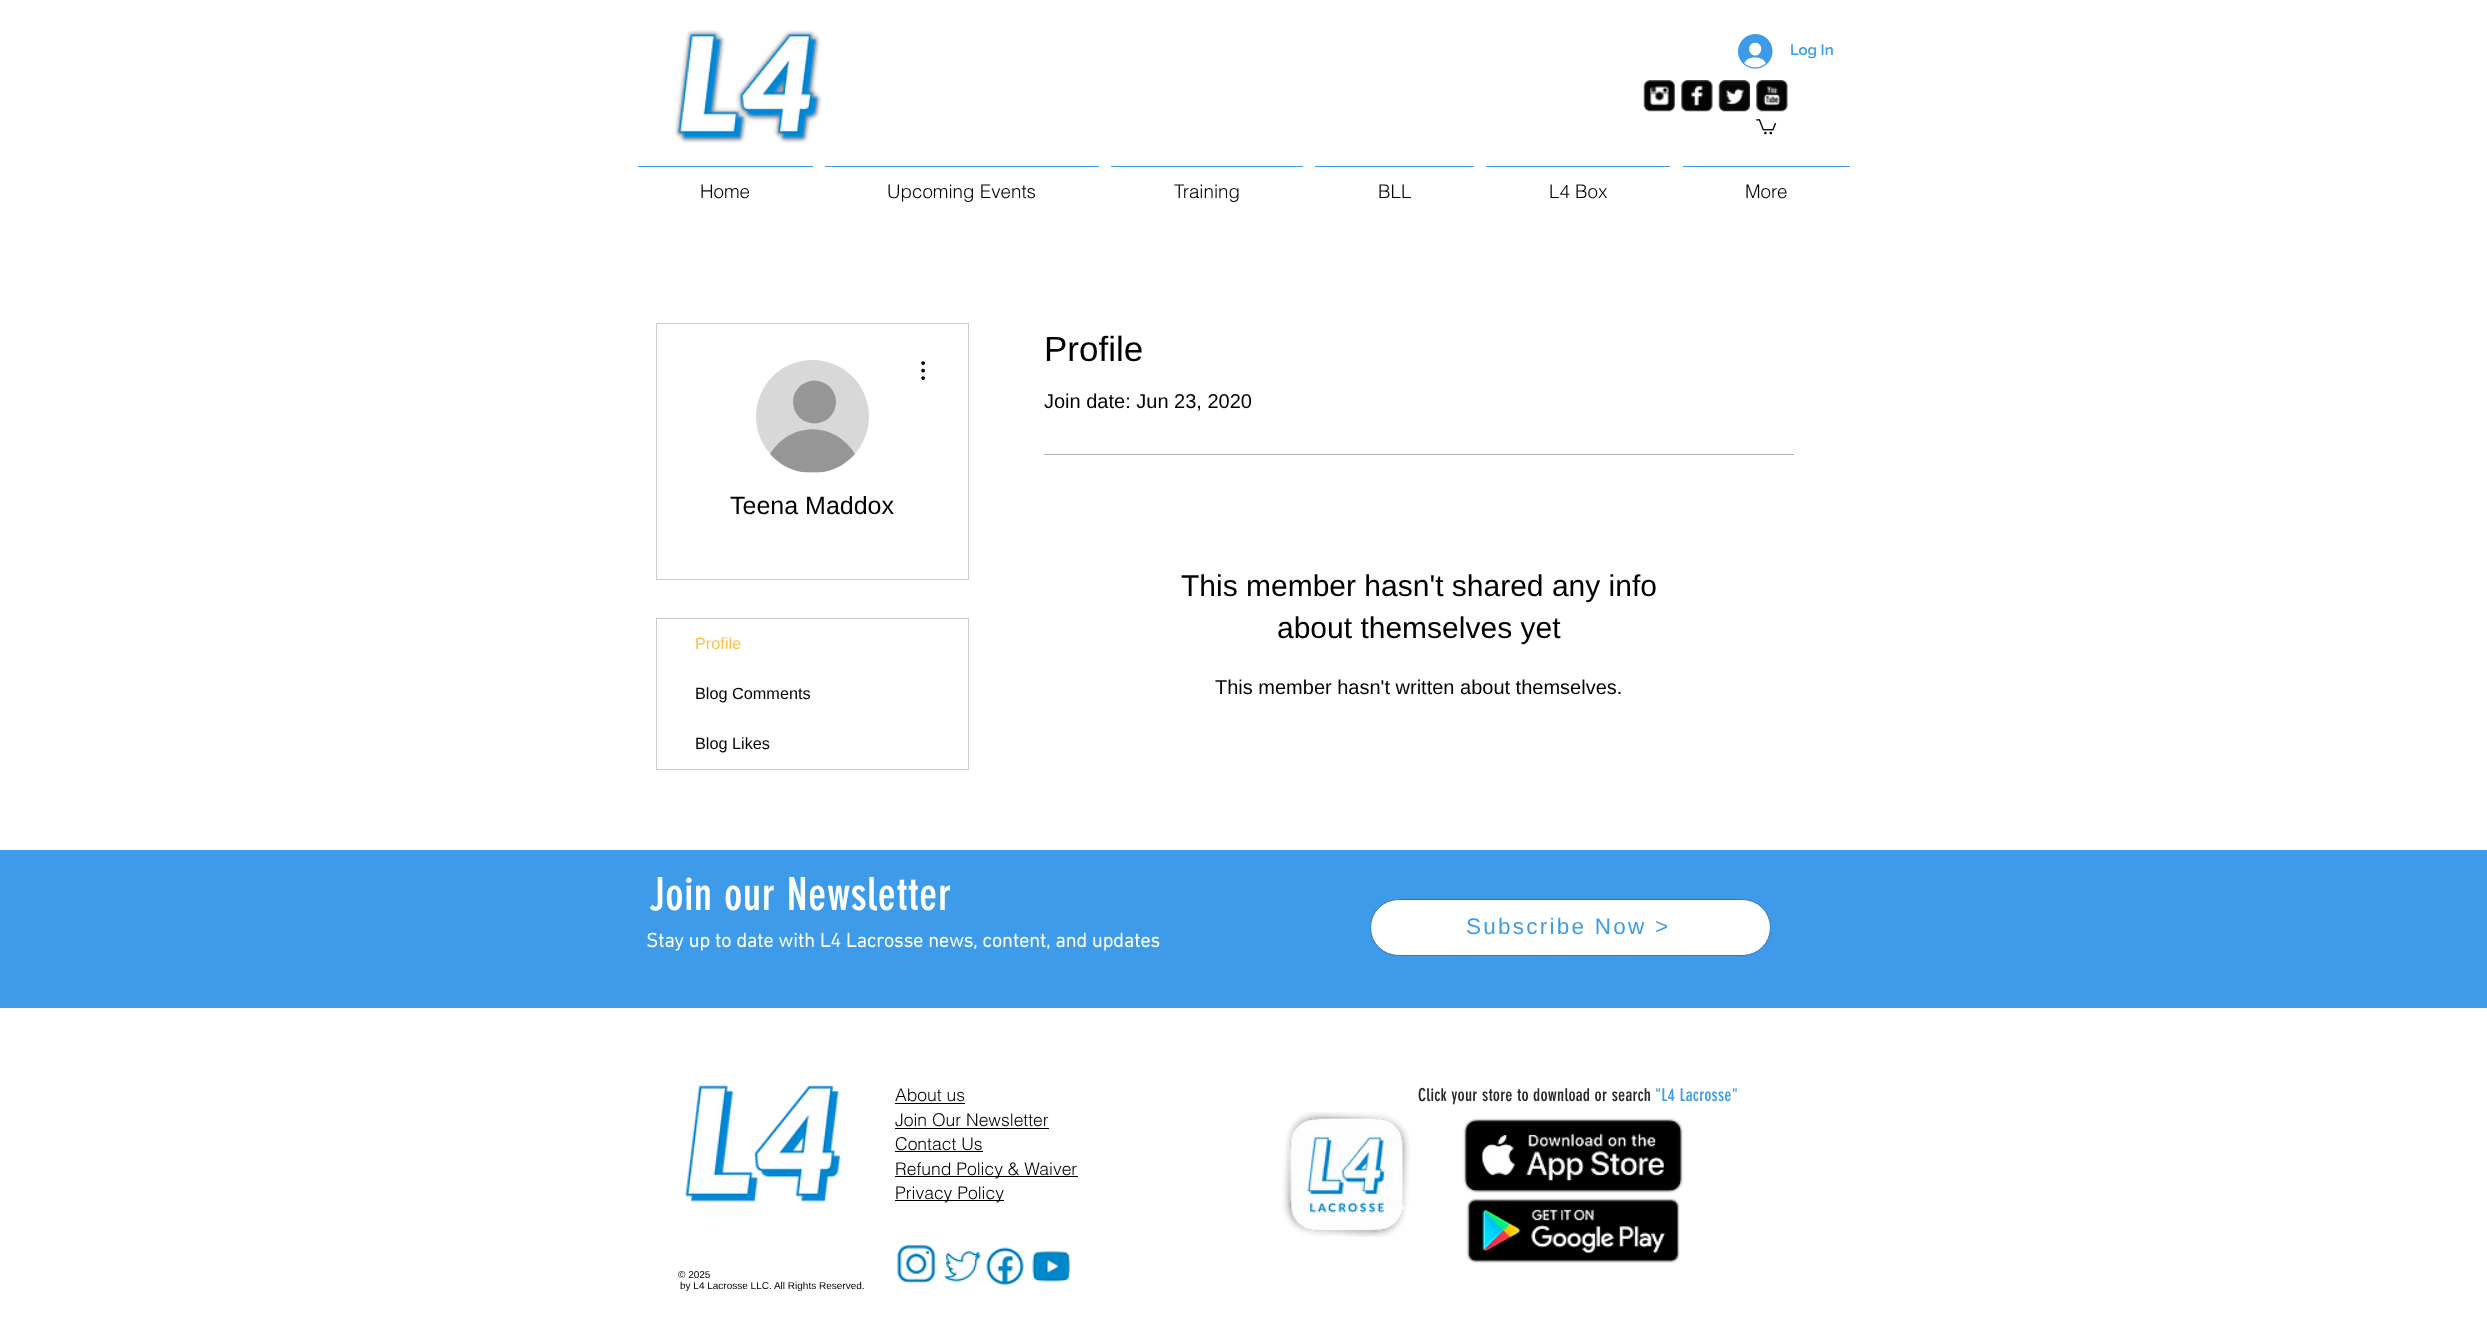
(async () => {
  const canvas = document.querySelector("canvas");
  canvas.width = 2487;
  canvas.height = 1328;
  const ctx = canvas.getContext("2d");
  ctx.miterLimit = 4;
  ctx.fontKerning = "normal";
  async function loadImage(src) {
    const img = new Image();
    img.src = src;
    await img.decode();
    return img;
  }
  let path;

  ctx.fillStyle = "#ffffff";
  ctx.fillRect(0, 0, 2487, 1328);
  ctx.drawImage(await loadImage("img/1.png"), 674, 30, 148, 113);
  ctx.drawImage(await loadImage("img/2.png"), 1738, 34, 35, 35);
  ctx.drawImage(await loadImage("img/3.png"), 1643, 80, 32, 32);
  ctx.drawImage(await loadImage("img/4.png"), 1681, 80, 32, 32);
  ctx.drawImage(await loadImage("img/5.png"), 1718, 80, 32, 32);
  ctx.drawImage(await loadImage("img/6.png"), 1756, 80, 32, 32);
  ctx.drawImage(await loadImage("img/7.png"), 1756, 119, 21, 16);
  for (const [x, y, w, h, color] of [
    [638, 166, 175, 1, "#3d9be9"],
    [825, 166, 274, 1, "#3d9be9"],
    [1111, 166, 192, 1, "#3d9be9"],
    [1315, 166, 159, 1, "#3d9be9"],
    [1486, 166, 184, 1, "#3d9be9"],
    [1683, 166, 167, 1, "#3d9be9"],
  ]) {
    ctx.fillStyle = color;
    ctx.fillRect(x, y, w, h);
  }
  ctx.strokeStyle = "#cccccc";
  ctx.strokeRect(656.5, 323.5, 312, 256);
  ctx.fillStyle = "#d8d8d8";
  ctx.beginPath();
  ctx.arc(812.5, 416.5, 56.5, 0, Math.PI * 2);
  ctx.fill();
  ctx.fillStyle = "#969696";
  ctx.beginPath();
  ctx.arc(814.5, 402, 21.5, 0, Math.PI * 2);
  ctx.fill();
  path = new Path2D("M802 472C789 470 778 463 770 454C790 421 835 421 855 454C847 463 836 470 823 472Z");
  ctx.fill(path);
  ctx.drawImage(await loadImage("img/8.png"), 921, 361, 4, 19);
  ctx.strokeRect(656.5, 618.5, 312, 151);
  ctx.fillStyle = "#b3b3b3";
  ctx.fillRect(1044, 454, 750, 1);
  ctx.fillStyle = "#3d9be9";
  ctx.fillRect(0, 850, 2487, 158);
  ctx.fillStyle = "#ffffff";
  ctx.beginPath();
  ctx.roundRect(1370.5, 899.5, 400, 56, 28);
  ctx.fill();
  ctx.strokeStyle = "#3078be";
  ctx.stroke();
  ctx.drawImage(await loadImage("img/9.png"), 685, 1085, 156, 117);
  for (const [x, y, w, h, color] of [
    [895, 1103, 70, 1, "#000000"],
    [895, 1128, 154, 1, "#000000"],
    [895, 1151, 88, 1, "#000000"],
    [895, 1176, 183, 1, "#000000"],
    [895, 1200, 109, 1, "#000000"],
  ]) {
    ctx.fillStyle = color;
    ctx.fillRect(x, y, w, h);
  }
  ctx.drawImage(await loadImage("img/10.png"), 1282, 1112, 128, 125);
  ctx.drawImage(await loadImage("img/11.png"), 1463, 1118, 220, 75);
  ctx.drawImage(await loadImage("img/12.png"), 1466, 1198, 214, 65);
  ctx.drawImage(await loadImage("img/13.png"), 895, 1245, 41, 38);
  ctx.drawImage(await loadImage("img/14.png"), 944, 1251, 38, 31);
  ctx.drawImage(await loadImage("img/15.png"), 986, 1247, 40, 39);
  ctx.drawImage(await loadImage("img/16.png"), 1032, 1251, 39, 31);
  ctx.font = "600 15px Raleway";
  ctx.fillStyle = "#3d9be9";
  ctx.fillText("Log In", 1790, 55);
  ctx.font = "300 18.75px helvetica";
  ctx.fillStyle = "#000000";
  for (const [text, x, y] of [
    ["Home", 700, 198],
    ["Upcoming Events", 887, 198],
    ["Training", 1174, 198],
    ["BLL", 1378, 198],
    ["L4 Box", 1549, 198],
    ["More", 1745, 198],
  ]) {
    ctx.fillText(text, x, y);
  }
  ctx.font = "25px Liberation Sans";
  ctx.fillText("Teena Maddox", 730, 514);
  ctx.font = "16.25px Liberation Sans";
  ctx.fillStyle = "#f9bf51";
  ctx.fillText("Profile", 695, 649);
  ctx.fillStyle = "#000000";
  ctx.fillText("Blog Comments", 695, 699);
  ctx.fillText("Blog Likes", 695, 749);
  ctx.font = "35px Liberation Sans";
  ctx.fillText("Profile", 1044, 361);
  ctx.font = "20px Liberation Sans";
  ctx.fillText("Join date: Jun 23, 2020", 1044, 408);
  ctx.font = "30px Liberation Sans";
  ctx.fillText("This member hasn't shared any info", 1181, 596);
  ctx.fillText("about themselves yet", 1277, 638);
  ctx.font = "20px Liberation Sans";
  ctx.fillText("This member hasn't written about themselves.", 1215, 694);
  ctx.letterSpacing = "0.5px";
  ctx.font = "45px 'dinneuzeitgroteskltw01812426'";
  ctx.fillStyle = "#ffffff";
  ctx.fillText("Join our Newsletter", 649, 910);
  ctx.letterSpacing = "2.25px";
  ctx.font = "22.5px Liberation Sans";
  ctx.fillStyle = "#3d9be9";
  ctx.fillText("Subscribe Now >", 1466, 934);
  ctx.letterSpacing = "0px";
  ctx.font = "bold 20px 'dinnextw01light'";
  ctx.fillStyle = "#ffffff";
  ctx.fillText("Stay up to date with L4 Lacrosse news, content, and updates", 646, 947);
  ctx.font = "300 17.5px helvetica";
  ctx.fillStyle = "#000000";
  for (const [text, x, y] of [
    ["About us", 895, 1101],
    ["Join Our Newsletter", 895, 1126],
    ["Contact Us", 895, 1150],
    ["Refund Policy & Waiver", 895, 1175],
    ["Privacy Policy", 895, 1199],
  ]) {
    ctx.fillText(text, x, y);
  }
  ctx.letterSpacing = "0.2px";
  ctx.font = "17.5px 'dinneuzeitgroteskltw01812426'";
  ctx.fillStyle = "#292929";
  ctx.fillText("Click your store to download or search", 1418, 1101);
  ctx.fillStyle = "#3d9be9";
  ctx.fillText("\"L4 Lacrosse\"", 1655, 1101);
  ctx.letterSpacing = "0px";
  ctx.font = "10px Liberation Sans";
  ctx.fillStyle = "#000000";
  ctx.fillText("© 2025", 678, 1278);
  ctx.fillText("by L4 Lacrosse LLC. All Rights Reserved.", 680, 1289);
})();
